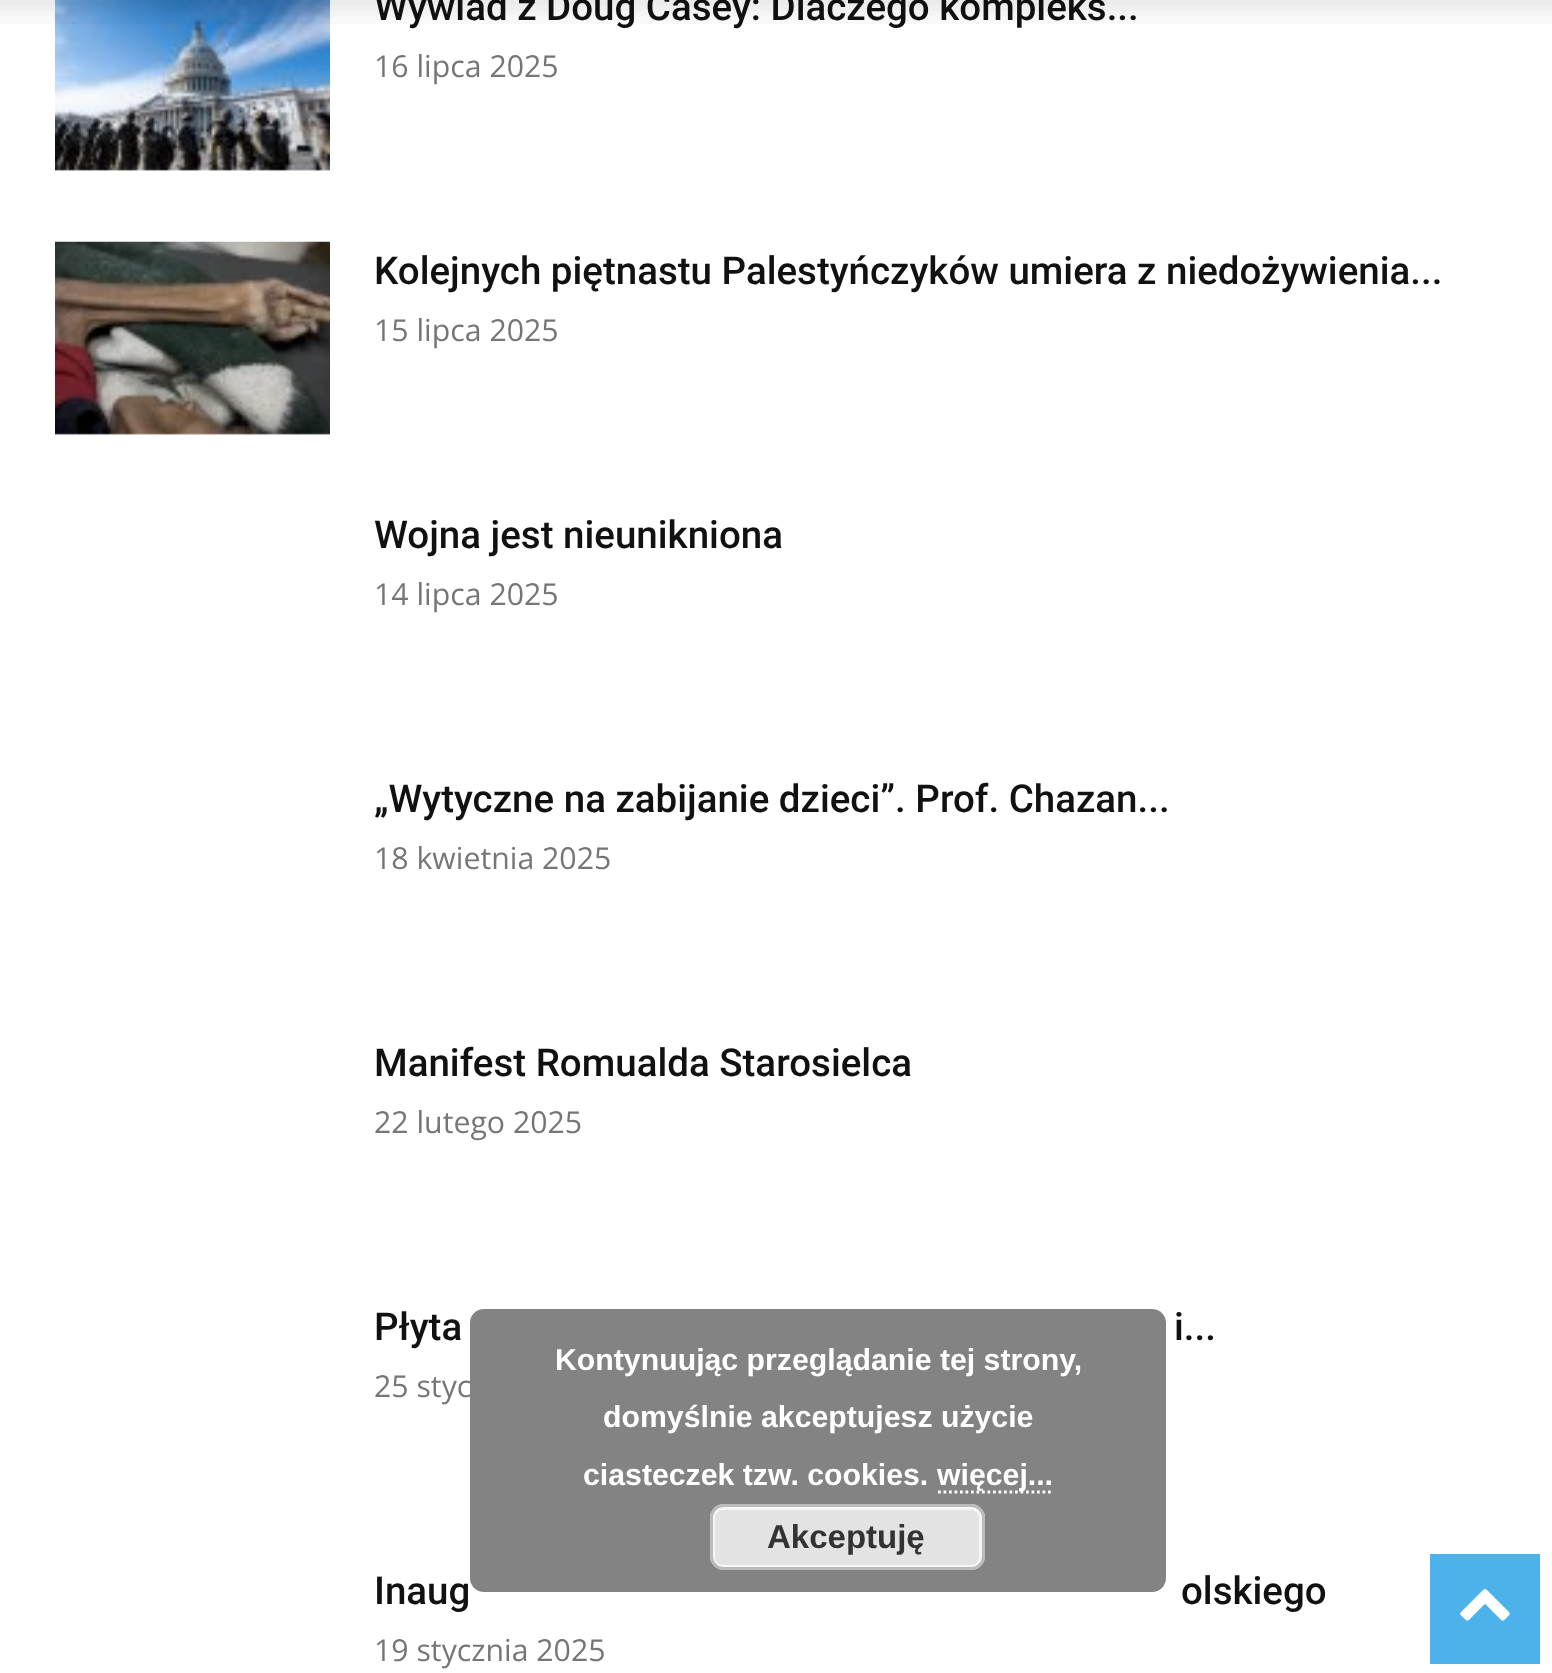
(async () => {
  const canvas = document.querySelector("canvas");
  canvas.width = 1552;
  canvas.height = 1673;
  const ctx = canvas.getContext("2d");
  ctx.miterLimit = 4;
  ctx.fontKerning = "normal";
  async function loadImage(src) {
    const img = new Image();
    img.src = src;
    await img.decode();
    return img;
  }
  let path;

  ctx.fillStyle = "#ffffff";
  ctx.fillRect(0, 0, 1552, 1673);
  ctx.drawImage(await loadImage("img/2.png"), 55, 0, 275, 171);
  ctx.drawImage(await loadImage("img/3.png"), 55, 241, 275, 194);
  ctx.fillStyle = "#4db2ec";
  ctx.fillRect(1430, 1554, 110, 110);
  ctx.drawImage(await loadImage("img/4.png"), 1460, 1589, 50, 32);
  ctx.font = "500 38.5px Roboto";
  ctx.fillStyle = "#111111";
  ctx.fillText("Wywiad z Doug Casey: Dlaczego kompleks...", 374, 20);
  ctx.drawImage(await loadImage("img/1.png"), 0, 0, 1552, 24);
  ctx.font = "30.25px Open Sans";
  ctx.fillStyle = "#767676";
  ctx.fillText("16 lipca 2025", 374, 77);
  ctx.font = "500 38.5px Roboto";
  ctx.fillStyle = "#111111";
  ctx.fillText("Kolejnych piętnastu Palestyńczyków umiera z niedożywienia...", 374, 284);
  ctx.font = "30.25px Open Sans";
  ctx.fillStyle = "#767676";
  ctx.fillText("15 lipca 2025", 374, 341);
  ctx.font = "500 38.5px Roboto";
  ctx.fillStyle = "#111111";
  ctx.fillText("Wojna jest nieunikniona", 374, 548);
  ctx.font = "30.25px Open Sans";
  ctx.fillStyle = "#767676";
  ctx.fillText("14 lipca 2025", 374, 605);
  ctx.font = "500 38.5px Roboto";
  ctx.fillStyle = "#111111";
  ctx.fillText("„Wytyczne na zabijanie dzieci”. Prof. Chazan...", 374, 812);
  ctx.font = "30.25px Open Sans";
  ctx.fillStyle = "#767676";
  ctx.fillText("18 kwietnia 2025", 374, 869);
  ctx.font = "500 38.5px Roboto";
  ctx.fillStyle = "#111111";
  ctx.fillText("Manifest Romualda Starosielca", 374, 1076);
  ctx.font = "30.25px Open Sans";
  ctx.fillStyle = "#767676";
  ctx.fillText("22 lutego 2025", 374, 1133);
  ctx.font = "500 38.5px Roboto";
  ctx.fillStyle = "#111111";
  ctx.fillText("Płyta", 374, 1340);
  ctx.fillText("i...", 1174, 1340);
  ctx.font = "30.25px Open Sans";
  ctx.fillStyle = "#767676";
  ctx.fillText("25 styc", 374, 1397);
  ctx.font = "500 38.5px Roboto";
  ctx.fillStyle = "#111111";
  ctx.fillText("Inaug", 374, 1604);
  ctx.fillText("olskiego", 1181, 1604);
  ctx.font = "30.25px Open Sans";
  ctx.fillStyle = "#767676";
  ctx.fillText("19 stycznia 2025", 374, 1661);
  ctx.fillStyle = "rgba(109, 109, 109, 0.85)";
  ctx.beginPath();
  ctx.roundRect(470, 1309, 696, 283, 14);
  ctx.fill();
  ctx.font = "bold 30.25px Liberation Sans";
  ctx.fillStyle = "#ffffff";
  for (const [text, x, y] of [
    ["Kontynuując przeglądanie tej strony,", 555, 1370],
    ["domyślnie akceptujesz użycie", 603, 1427],
    ["ciasteczek tzw. cookies.", 583, 1485],
  ]) {
    ctx.fillText(text, x, y);
  }
  path = new Path2D("M938 1492H1053");
  ctx.strokeStyle = "#ffffff";
  ctx.lineWidth = 2.8;
  ctx.setLineDash([2.75, 2.75]);
  ctx.stroke(path);
  ctx.fillText("więcej...", 937, 1485);
  ctx.fillStyle = "#e3e3e3";
  ctx.beginPath();
  ctx.roundRect(710, 1504, 275, 66, 14);
  ctx.fill();
  ctx.beginPath();
  ctx.roundRect(713.5, 1508.5, 267, 58, 9.5);
  ctx.strokeStyle = "#f6f6f6";
  ctx.lineWidth = 3;
  ctx.setLineDash([]);
  ctx.stroke();
  ctx.beginPath();
  ctx.roundRect(711.5, 1505.5, 272, 63, 12.5);
  ctx.strokeStyle = "#bbbbbb";
  ctx.stroke();
  ctx.font = "bold 33px Liberation Sans";
  ctx.fillStyle = "#333333";
  ctx.fillText("Akceptuję", 767, 1548);
})();
